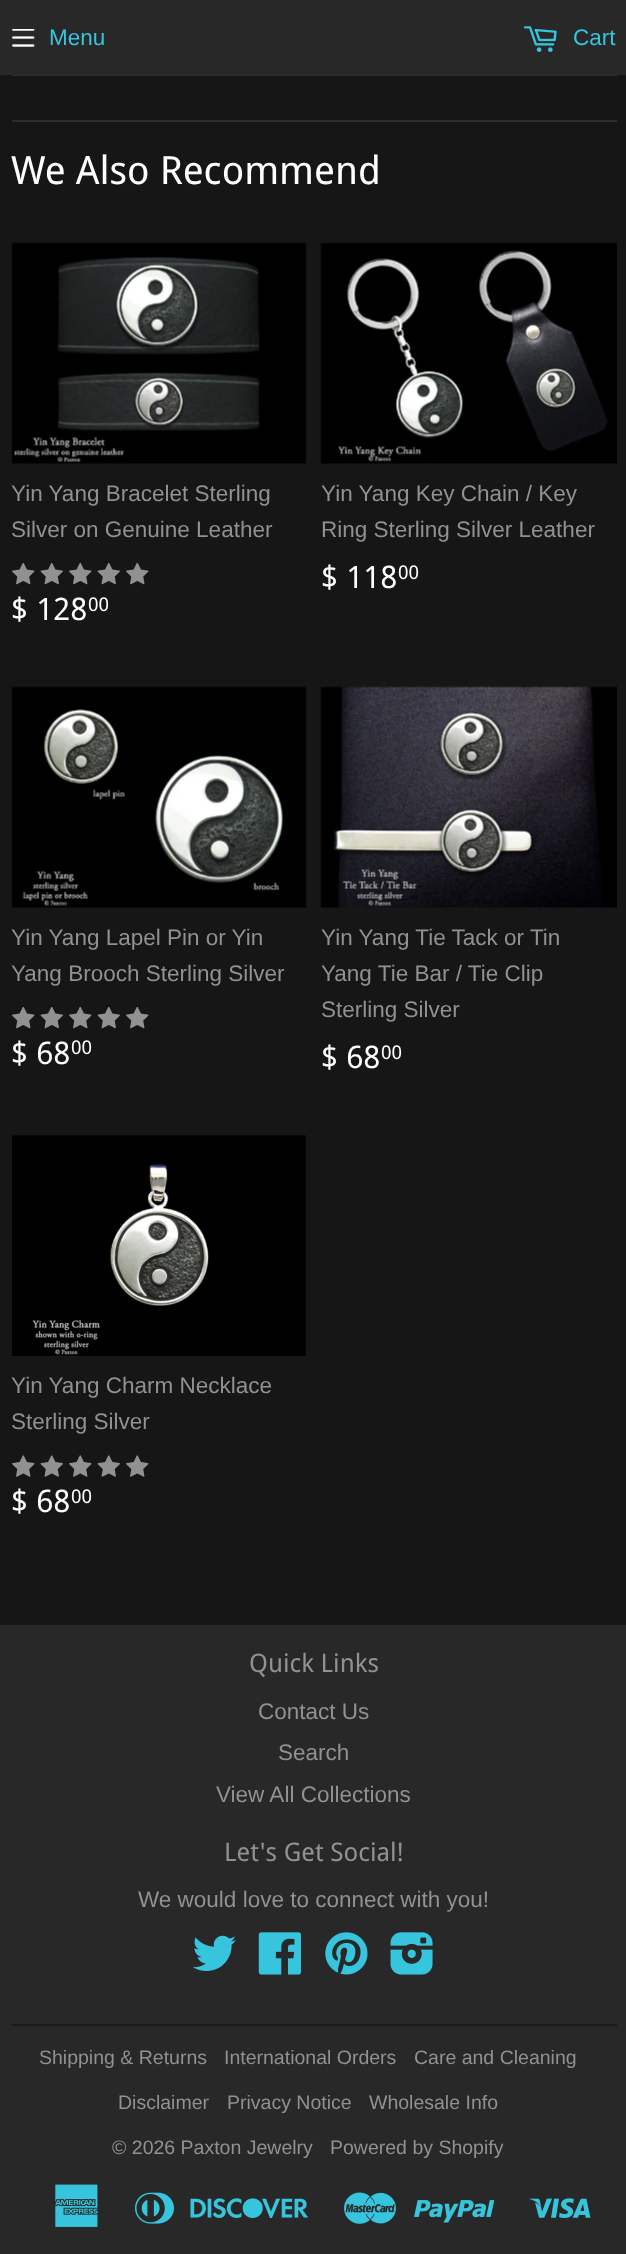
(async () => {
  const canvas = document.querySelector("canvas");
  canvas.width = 626;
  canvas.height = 2254;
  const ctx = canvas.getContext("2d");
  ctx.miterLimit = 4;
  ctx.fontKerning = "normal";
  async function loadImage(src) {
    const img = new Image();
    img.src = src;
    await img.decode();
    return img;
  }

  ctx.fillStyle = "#161616";
  ctx.fillRect(0, 0, 626, 2254);
  ctx.fillStyle = "#282828";
  ctx.fillRect(0, 0, 626, 75);
  ctx.drawImage(await loadImage("img/1.png"), 12, 29, 23, 18);
  ctx.drawImage(await loadImage("img/2.png"), 523, 26, 34, 26);
  ctx.fillStyle = "#2e2e2e";
  ctx.fillRect(12, 75, 605, 1);
  ctx.fillRect(12, 120, 605, 2);
  ctx.drawImage(await loadImage("img/3.png"), 11, 242, 296, 222);
  ctx.drawImage(await loadImage("img/4.png"), 12, 562, 23, 23);
  ctx.drawImage(await loadImage("img/5.png"), 40, 562, 23, 23);
  ctx.drawImage(await loadImage("img/4.png"), 69, 562, 23, 23);
  ctx.drawImage(await loadImage("img/5.png"), 97, 562, 23, 23);
  ctx.drawImage(await loadImage("img/4.png"), 126, 562, 23, 23);
  ctx.drawImage(await loadImage("img/6.png"), 320, 242, 297, 222);
  ctx.drawImage(await loadImage("img/7.png"), 11, 686, 296, 222);
  ctx.drawImage(await loadImage("img/4.png"), 12, 1006, 23, 23);
  ctx.drawImage(await loadImage("img/5.png"), 40, 1006, 23, 23);
  ctx.drawImage(await loadImage("img/4.png"), 69, 1006, 23, 23);
  ctx.drawImage(await loadImage("img/5.png"), 97, 1006, 23, 23);
  ctx.drawImage(await loadImage("img/4.png"), 126, 1006, 23, 23);
  ctx.drawImage(await loadImage("img/8.png"), 320, 686, 297, 222);
  ctx.drawImage(await loadImage("img/9.png"), 12, 1135, 294, 221);
  ctx.drawImage(await loadImage("img/10.png"), 12, 1455, 23, 22);
  ctx.drawImage(await loadImage("img/11.png"), 40, 1455, 23, 22);
  ctx.drawImage(await loadImage("img/10.png"), 69, 1455, 23, 22);
  ctx.drawImage(await loadImage("img/11.png"), 97, 1455, 23, 22);
  ctx.drawImage(await loadImage("img/10.png"), 126, 1455, 23, 22);
  ctx.fillStyle = "#282828";
  ctx.fillRect(0, 1625, 626, 629);
  ctx.drawImage(await loadImage("img/12.png"), 193, 1935, 43, 36);
  ctx.drawImage(await loadImage("img/13.png"), 258, 1932, 43, 43);
  ctx.drawImage(await loadImage("img/14.png"), 325, 1932, 43, 43);
  ctx.drawImage(await loadImage("img/15.png"), 390, 1932, 43, 43);
  ctx.fillStyle = "#1b1b1b";
  ctx.fillRect(12, 2024, 605, 2);
  ctx.drawImage(await loadImage("img/16.png"), 55, 2184, 43, 43);
  ctx.drawImage(await loadImage("img/17.png"), 135, 2192, 39, 32);
  ctx.drawImage(await loadImage("img/18.png"), 190, 2198, 119, 20);
  ctx.drawImage(await loadImage("img/19.png"), 344, 2192, 52, 32);
  ctx.drawImage(await loadImage("img/20.png"), 414, 2200, 81, 23);
  ctx.drawImage(await loadImage("img/21.png"), 529, 2198, 62, 20);
  ctx.font = "22.5px Liberation Sans";
  ctx.fillStyle = "#36c5dd";
  ctx.fillText("Menu", 49, 45);
  ctx.fillText("Cart", 573, 45);
  ctx.font = "39px Droid Sans";
  ctx.fillStyle = "#ffffff";
  ctx.fillText("We Also Recommend", 11, 184);
  ctx.font = "22.5px Liberation Sans";
  ctx.fillStyle = "#919191";
  ctx.fillText("Yin Yang Bracelet Sterling", 11, 501);
  ctx.fillText("Silver on Genuine Leather", 11, 537);
  ctx.font = "31px Droid Sans";
  ctx.fillStyle = "#ffffff";
  ctx.fillText("$ 128", 11, 620);
  ctx.font = "19px Droid Sans";
  ctx.fillText("00", 88, 611);
  ctx.font = "22.5px Liberation Sans";
  ctx.fillStyle = "#919191";
  ctx.fillText("Yin Yang Key Chain / Key", 321, 501);
  ctx.fillText("Ring Sterling Silver Leather", 321, 537);
  ctx.font = "31px Droid Sans";
  ctx.fillStyle = "#ffffff";
  ctx.fillText("$ 118", 321, 588);
  ctx.font = "19px Droid Sans";
  ctx.fillText("00", 398, 579);
  ctx.font = "22.5px Liberation Sans";
  ctx.fillStyle = "#919191";
  ctx.fillText("Yin Yang Lapel Pin or Yin", 11, 945);
  ctx.fillText("Yang Brooch Sterling Silver", 11, 981);
  ctx.font = "31px Droid Sans";
  ctx.fillStyle = "#ffffff";
  ctx.fillText("$ 68", 11, 1064);
  ctx.font = "19px Droid Sans";
  ctx.fillText("00", 71, 1054);
  ctx.font = "22.5px Liberation Sans";
  ctx.fillStyle = "#919191";
  for (const [text, x, y] of [
    ["Yin Yang Tie Tack or Tin", 321, 945],
    ["Yang Tie Bar / Tie Clip", 321, 981],
    ["Sterling Silver", 321, 1017],
  ]) {
    ctx.fillText(text, x, y);
  }
  ctx.font = "31px Droid Sans";
  ctx.fillStyle = "#ffffff";
  ctx.fillText("$ 68", 321, 1068);
  ctx.font = "19px Droid Sans";
  ctx.fillText("00", 381, 1059);
  ctx.font = "22.5px Liberation Sans";
  ctx.fillStyle = "#919191";
  ctx.fillText("Yin Yang Charm Necklace", 11, 1393);
  ctx.fillText("Sterling Silver", 11, 1429);
  ctx.font = "31px Droid Sans";
  ctx.fillStyle = "#ffffff";
  ctx.fillText("$ 68", 11, 1512);
  ctx.font = "19px Droid Sans";
  ctx.fillText("00", 71, 1503);
  ctx.font = "25.5px Droid Sans";
  ctx.fillStyle = "#919191";
  ctx.fillText("Quick Links", 249, 1672);
  ctx.font = "22.5px Liberation Sans";
  for (const [text, x, y] of [
    ["Contact Us", 258, 1719],
    ["Search", 278, 1760],
    ["View All Collections", 216, 1802],
  ]) {
    ctx.fillText(text, x, y);
  }
  ctx.font = "25.5px Droid Sans";
  ctx.fillText("Let's Get Social!", 224, 1861);
  ctx.font = "22.5px Liberation Sans";
  ctx.fillText("We would love to connect with you!", 138, 1907);
  ctx.font = "19.5px Liberation Sans";
  for (const [text, x, y] of [
    ["Shipping & Returns", 39, 2064],
    ["International Orders", 224, 2064],
    ["Care and Cleaning", 414, 2064],
    ["Disclaimer", 118, 2109],
    ["Privacy Notice", 227, 2109],
    ["Wholesale Info", 369, 2109],
    ["© 2026 Paxton Jewelry", 112, 2154],
    ["Powered by Shopify", 330, 2154],
  ]) {
    ctx.fillText(text, x, y);
  }
})();
